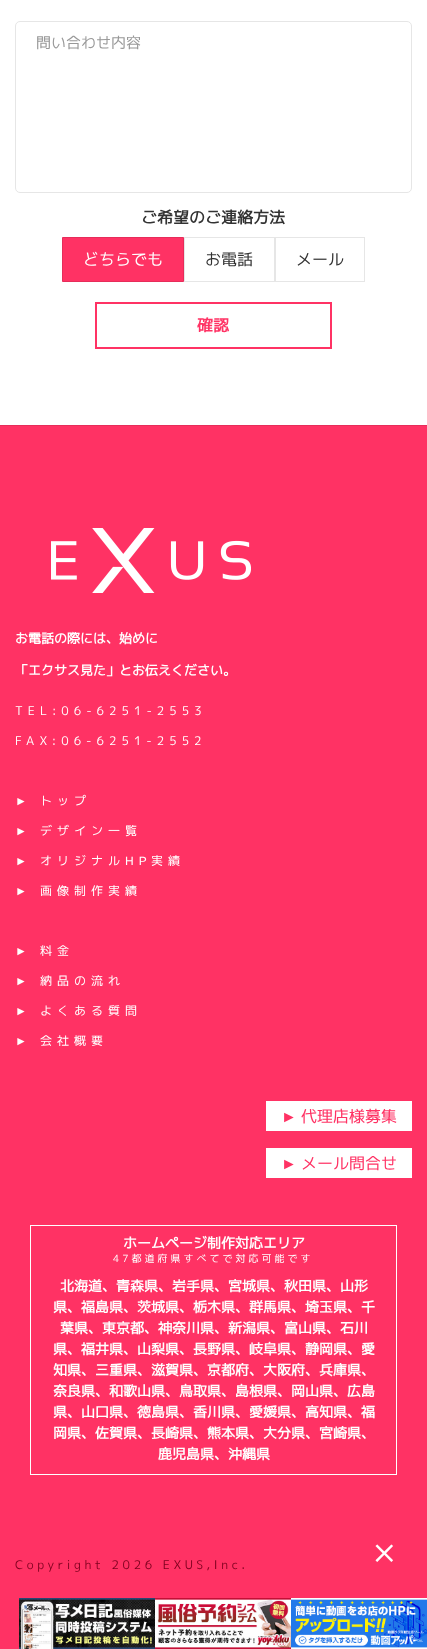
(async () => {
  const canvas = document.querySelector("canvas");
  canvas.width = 427;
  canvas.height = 1649;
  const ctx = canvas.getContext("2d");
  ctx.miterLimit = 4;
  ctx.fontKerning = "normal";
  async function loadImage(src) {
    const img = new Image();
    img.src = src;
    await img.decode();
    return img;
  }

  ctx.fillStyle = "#ffffff";
  ctx.fillRect(0, 0, 427, 1649);
  ctx.beginPath();
  ctx.roundRect(15.5, 21.5, 396, 171, 4.5);
  ctx.strokeStyle = "#e6e6e6";
  ctx.stroke();
  ctx.fillStyle = "#ff3264";
  ctx.beginPath();
  ctx.rect(62.5, 237.5, 121, 44);
  ctx.fill();
  ctx.strokeStyle = "#e62d5a";
  ctx.stroke();
  ctx.strokeStyle = "#e6e6e6";
  ctx.strokeRect(184.5, 237.5, 90, 44);
  ctx.strokeRect(275.5, 237.5, 89, 44);
  ctx.strokeStyle = "#ff3264";
  ctx.lineWidth = 2;
  ctx.strokeRect(96, 303, 235, 45);
  ctx.fillRect(0, 426, 427, 1223);
  ctx.fillStyle = "#e62d5a";
  ctx.fillRect(0, 425, 427, 1);
  ctx.drawImage(await loadImage("img/1.png"), 51, 528, 200, 65);
  ctx.fillStyle = "#ffffff";
  ctx.fillRect(266, 1101, 146, 30);
  ctx.fillRect(266, 1148, 146, 30);
  ctx.strokeStyle = "#ffffff";
  ctx.lineWidth = 1;
  ctx.strokeRect(30.5, 1225.5, 366, 249);
  ctx.drawImage(await loadImage("img/2.png"), 19, 1598, 136, 51);
  ctx.drawImage(await loadImage("img/3.png"), 155, 1598, 136, 51);
  ctx.drawImage(await loadImage("img/4.png"), 291, 1598, 136, 51);
  ctx.font = "15px 'M PLUS 1p'";
  ctx.fillStyle = "#999999";
  ctx.fillText("問い合わせ内容", 36, 48);
  ctx.font = "bold 16px 'M PLUS 1p'";
  ctx.fillStyle = "#333333";
  ctx.fillText("ご希望のご連絡方法", 141, 223);
  ctx.font = "16px 'M PLUS 1p'";
  ctx.fillStyle = "#ffffff";
  ctx.fillText("どちらでも", 83, 265);
  ctx.fillStyle = "#333333";
  ctx.fillText("お電話", 205, 265);
  ctx.fillText("メール", 296, 265);
  ctx.font = "bold 16px 'M PLUS 1p'";
  ctx.fillStyle = "#ff3264";
  ctx.fillText("確認", 197, 331);
  ctx.font = "bold 13px 'M PLUS 1p'";
  ctx.fillStyle = "#ffffff";
  ctx.fillText("お電話の際には、始めに", 15, 643);
  ctx.fillText("「エクサス見た」とお伝えください。", 15, 675);
  ctx.letterSpacing = "5px";
  ctx.font = "12px 'M PLUS 1p'";
  ctx.fillText("TEL:06-6251-2553", 15, 715);
  ctx.fillText("FAX:06-6251-2552", 15, 745);
  ctx.font = "12px Liberation Sans";
  ctx.fillText("►", 15, 805);
  ctx.font = "12px 'M PLUS 1p'";
  ctx.fillText("トップ", 40, 805);
  ctx.font = "12px Liberation Sans";
  ctx.fillText("►", 15, 835);
  ctx.font = "12px 'M PLUS 1p'";
  ctx.fillText("デザイン一覧", 40, 835);
  ctx.font = "12px Liberation Sans";
  ctx.fillText("►", 15, 865);
  ctx.font = "12px 'M PLUS 1p'";
  ctx.fillText("オリジナル", 40, 865);
  ctx.font = "12px Liberation Sans";
  ctx.fillText("HP", 125, 865);
  ctx.font = "12px 'M PLUS 1p'";
  ctx.fillText("実績", 151, 865);
  ctx.font = "12px Liberation Sans";
  ctx.fillText("►", 15, 895);
  ctx.font = "12px 'M PLUS 1p'";
  ctx.fillText("画像制作実績", 40, 895);
  ctx.font = "12px Liberation Sans";
  ctx.fillText("►", 15, 955);
  ctx.font = "12px 'M PLUS 1p'";
  ctx.fillText("料金", 40, 955);
  ctx.font = "12px Liberation Sans";
  ctx.fillText("►", 15, 985);
  ctx.font = "12px 'M PLUS 1p'";
  ctx.fillText("納品の流れ", 40, 985);
  ctx.font = "12px Liberation Sans";
  ctx.fillText("►", 15, 1015);
  ctx.font = "12px 'M PLUS 1p'";
  ctx.fillText("よくある質問", 40, 1015);
  ctx.font = "12px Liberation Sans";
  ctx.fillText("►", 15, 1045);
  ctx.font = "12px 'M PLUS 1p'";
  ctx.fillText("会社概要", 40, 1045);
  ctx.letterSpacing = "0px";
  ctx.font = "16px Liberation Sans";
  ctx.fillStyle = "#ff3264";
  ctx.fillText("►", 281, 1122);
  ctx.font = "16px 'M PLUS 1p'";
  ctx.fillText("代理店様募集", 301, 1122);
  ctx.font = "16px Liberation Sans";
  ctx.fillText("►", 281, 1169);
  ctx.font = "16px 'M PLUS 1p'";
  ctx.fillText("メール問合せ", 301, 1169);
  ctx.font = "bold 14px 'M PLUS 1p'";
  ctx.fillStyle = "#ffffff";
  ctx.fillText("ホームページ制作対応エリア", 123, 1248);
  ctx.letterSpacing = "3px";
  ctx.font = "10px 'M PLUS 1p'";
  ctx.fillText("47都道府県すべてで対応可能です", 113, 1262);
  ctx.letterSpacing = "0px";
  ctx.font = "bold 14px 'M PLUS 1p'";
  for (const [text, x, y] of [
    ["北海道、青森県、岩手県、宮城県、秋田県、山形", 60, 1291],
    ["県、福島県、茨城県、栃木県、群馬県、埼玉県、千", 53, 1312],
    ["葉県、東京都、神奈川県、新潟県、富山県、石川", 60, 1333],
    ["県、福井県、山梨県、長野県、岐阜県、静岡県、愛", 53, 1354],
    ["知県、三重県、滋賀県、京都府、大阪府、兵庫県、", 53, 1375],
    ["奈良県、和歌山県、鳥取県、島根県、岡山県、広島", 53, 1396],
    ["県、山口県、徳島県、香川県、愛媛県、高知県、福", 53, 1417],
    ["岡県、佐賀県、長崎県、熊本県、大分県、宮崎県、", 53, 1438],
    ["鹿児島県、沖縄県", 158, 1459],
  ]) {
    ctx.fillText(text, x, y);
  }
  ctx.letterSpacing = "3.6px";
  ctx.font = "12px 'M PLUS 1p'";
  ctx.fillStyle = "#7d001e";
  ctx.fillText("Copyright 2026 EXUS,Inc.", 15, 1569);
  ctx.letterSpacing = "0px";
  ctx.font = "34px 'M PLUS 1p'";
  ctx.fillStyle = "#ffffff";
  ctx.fillText("×", 374, 1563);
})();
